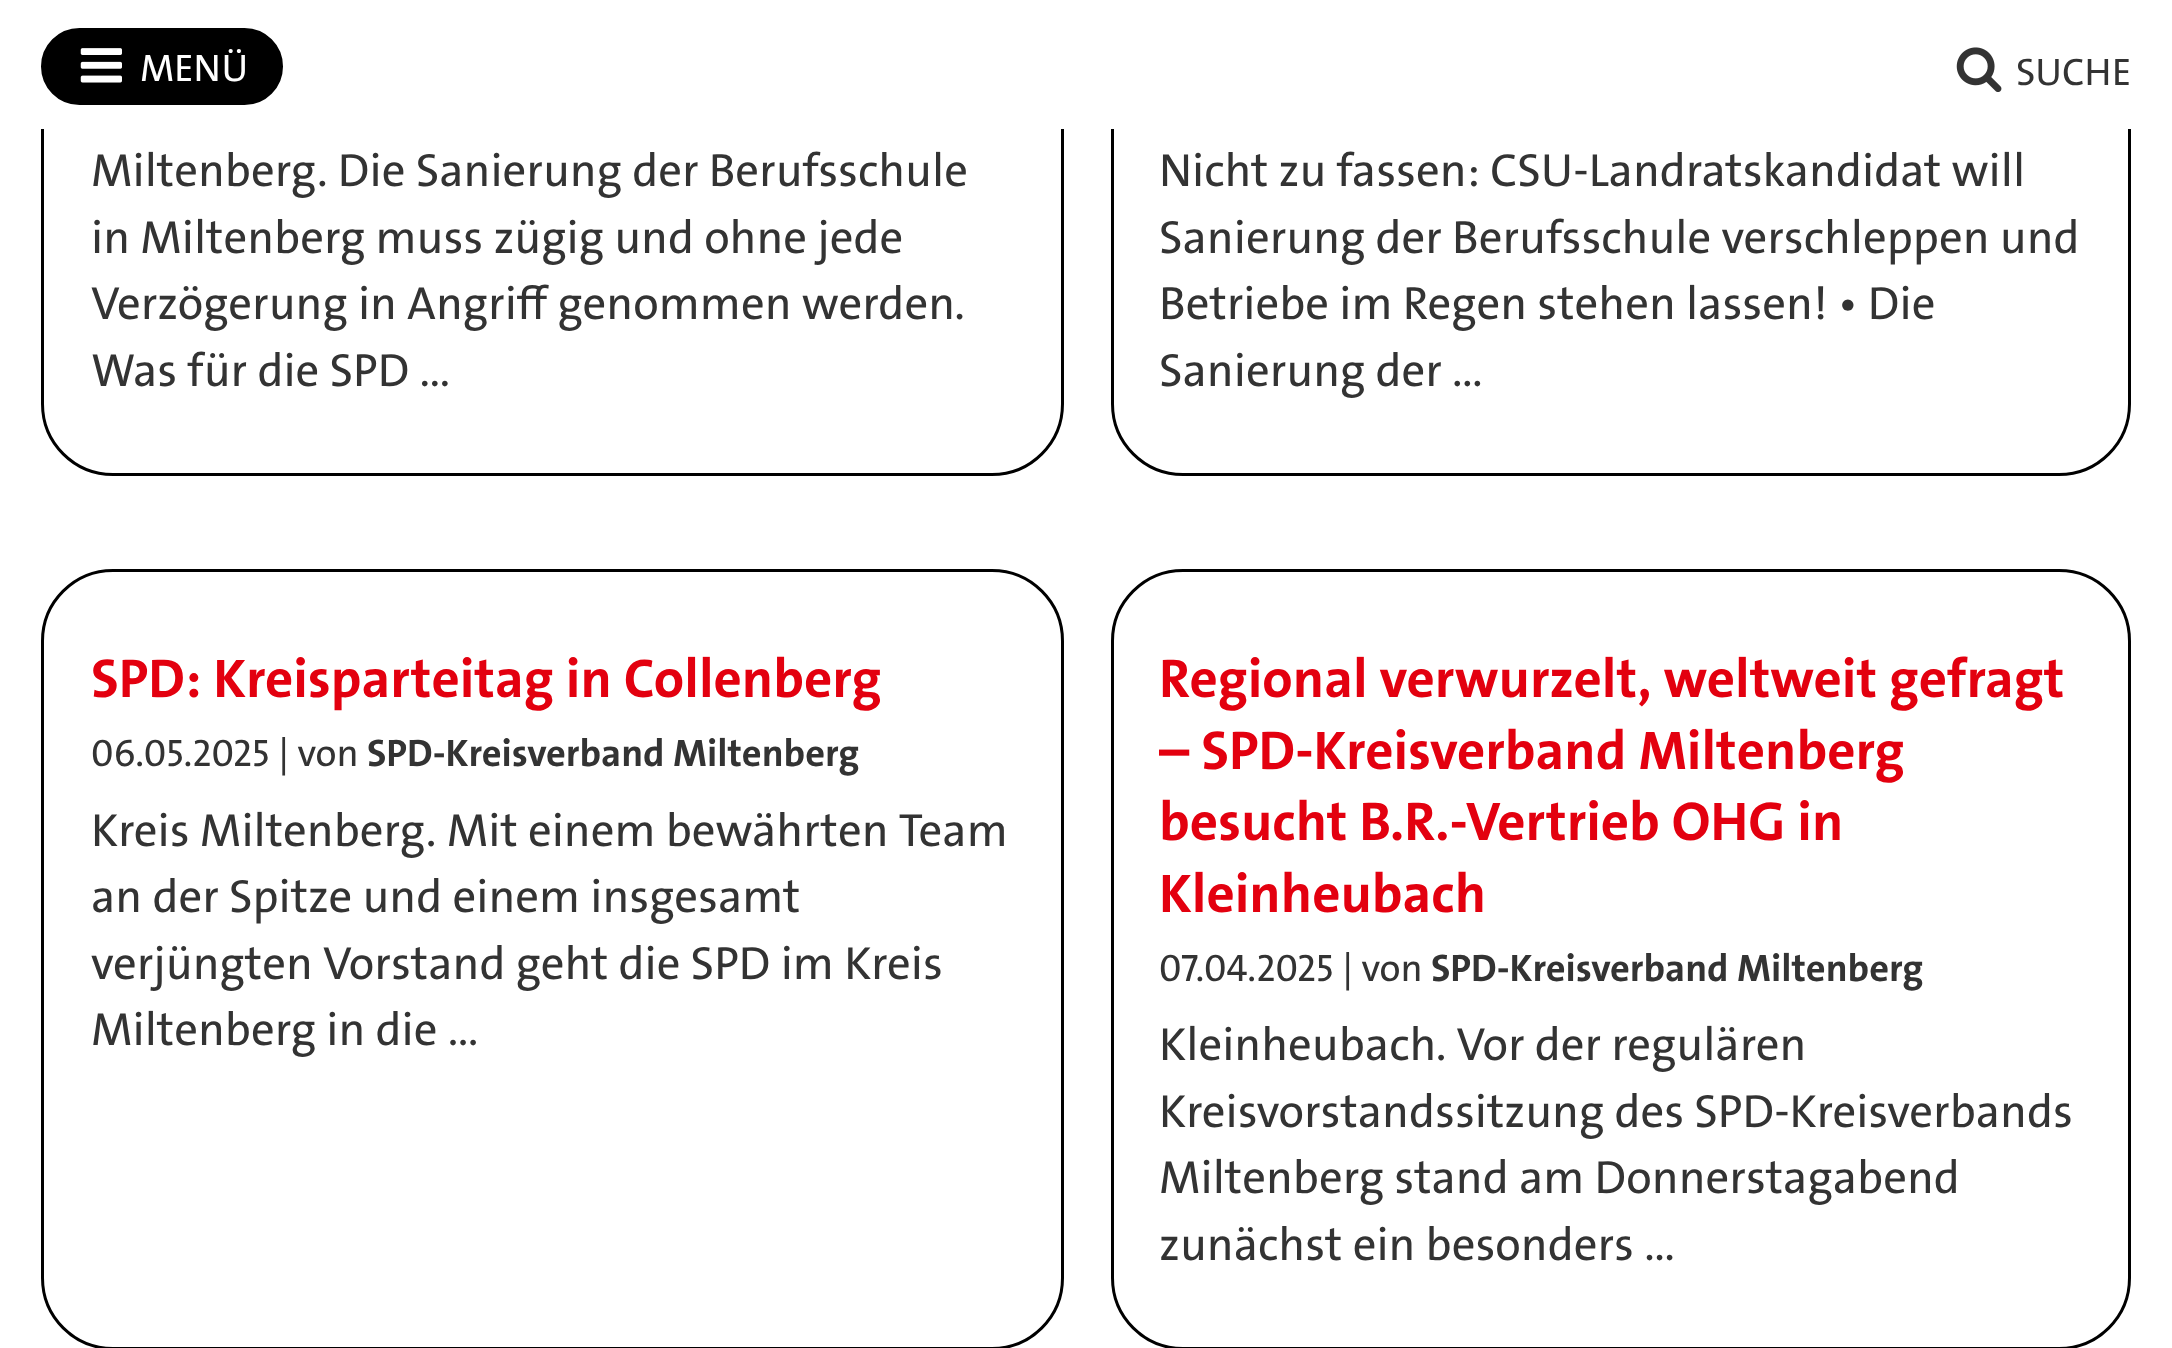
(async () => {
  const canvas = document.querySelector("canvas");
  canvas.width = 2172;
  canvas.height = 1348;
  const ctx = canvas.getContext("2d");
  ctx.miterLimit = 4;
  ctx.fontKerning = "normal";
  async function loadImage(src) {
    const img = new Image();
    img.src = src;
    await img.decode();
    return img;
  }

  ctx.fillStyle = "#ffffff";
  ctx.fillRect(0, 0, 2172, 1348);
  ctx.beginPath();
  ctx.roundRect(42.5, -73.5, 1020, 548, 70.5);
  ctx.strokeStyle = "#000000";
  ctx.lineWidth = 3;
  ctx.stroke();
  ctx.beginPath();
  ctx.roundRect(1112.5, -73.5, 1017, 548, 70.5);
  ctx.stroke();
  ctx.fillRect(41, 0, 2090, 129);
  ctx.fillStyle = "#000000";
  ctx.beginPath();
  ctx.roundRect(44, 31, 236, 71, 35.5);
  ctx.fill();
  ctx.lineWidth = 6;
  ctx.stroke();
  ctx.drawImage(await loadImage("img/1.png"), 80, 48, 42, 35);
  ctx.drawImage(await loadImage("img/2.png"), 1956, 47, 46, 45);
  ctx.beginPath();
  ctx.roundRect(42.5, 570.5, 1020, 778, 70.5);
  ctx.lineWidth = 3;
  ctx.stroke();
  ctx.beginPath();
  ctx.roundRect(1112.5, 570.5, 1017, 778, 70.5);
  ctx.stroke();
  ctx.font = "500 38.5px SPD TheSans";
  ctx.fillStyle = "#ffffff";
  ctx.fillText("MENÜ", 140, 81);
  ctx.fillStyle = "#333333";
  ctx.fillText("SUCHE", 2016, 85);
  ctx.font = "500 46.75px SPD TheSans";
  for (const [text, x, y] of [
    ["Miltenberg. Die Sanierung der Berufsschule", 91, 186],
    ["in Miltenberg muss zügig und ohne jede", 91, 253],
    ["Verzögerung in Angriff genommen werden.", 91, 319],
    ["Was für die SPD …", 91, 386],
    ["Nicht zu fassen: CSU-Landratskandidat will", 1159, 186],
    ["Sanierung der Berufsschule verschleppen und", 1159, 253],
    ["Betriebe im Regen stehen lassen! • Die", 1159, 319],
    ["Sanierung der …", 1159, 386],
  ]) {
    ctx.fillText(text, x, y);
  }
  ctx.font = "bold 55px SPD TheSans";
  ctx.fillStyle = "#e3000f";
  ctx.fillText("SPD: Kreisparteitag in Collenberg", 91, 697);
  ctx.font = "500 38.5px SPD TheSans";
  ctx.fillStyle = "#333333";
  ctx.fillText("06.05.2025 | von", 91, 766);
  ctx.font = "bold 38.5px SPD TheSans";
  ctx.fillText("SPD-Kreisverband Miltenberg", 367, 766);
  ctx.font = "500 46.75px SPD TheSans";
  for (const [text, x, y] of [
    ["Kreis Miltenberg. Mit einem bewährten Team", 91, 846],
    ["an der Spitze und einem insgesamt", 91, 912],
    ["verjüngten Vorstand geht die SPD im Kreis", 91, 979],
    ["Miltenberg in die …", 91, 1045],
  ]) {
    ctx.fillText(text, x, y);
  }
  ctx.font = "bold 55px SPD TheSans";
  ctx.fillStyle = "#e3000f";
  for (const [text, x, y] of [
    ["Regional verwurzelt, weltweit gefragt", 1159, 697],
    ["– SPD-Kreisverband Miltenberg", 1159, 769],
    ["besucht B.R.-Vertrieb OHG in", 1159, 840],
    ["Kleinheubach", 1159, 912],
  ]) {
    ctx.fillText(text, x, y);
  }
  ctx.font = "500 38.5px SPD TheSans";
  ctx.fillStyle = "#333333";
  ctx.fillText("07.04.2025 | von", 1159, 981);
  ctx.font = "bold 38.5px SPD TheSans";
  ctx.fillText("SPD-Kreisverband Miltenberg", 1431, 981);
  ctx.font = "500 46.75px SPD TheSans";
  for (const [text, x, y] of [
    ["Kleinheubach. Vor der regulären", 1159, 1060],
    ["Kreisvorstandssitzung des SPD-Kreisverbands", 1159, 1127],
    ["Miltenberg stand am Donnerstagabend", 1159, 1193],
    ["zunächst ein besonders …", 1159, 1260],
  ]) {
    ctx.fillText(text, x, y);
  }
})();
